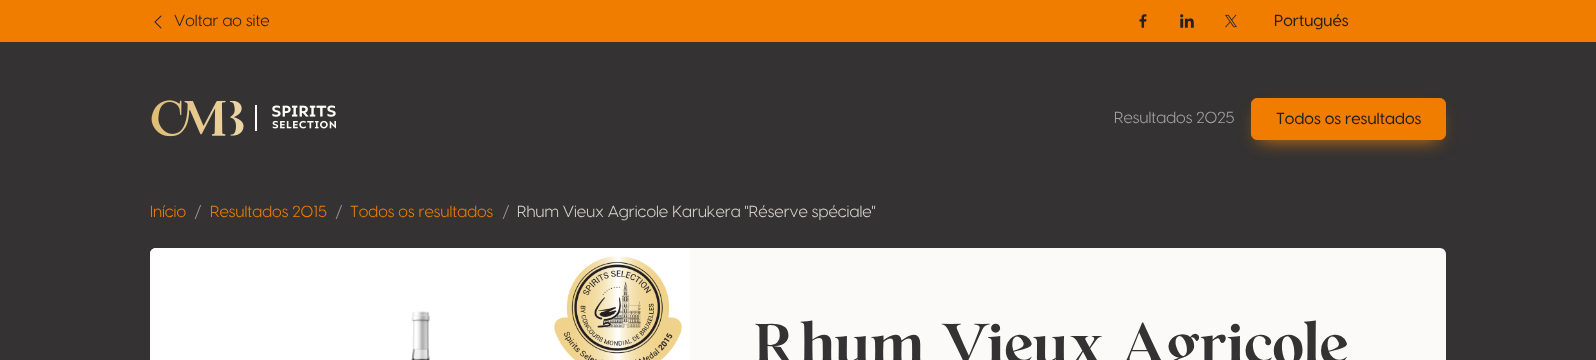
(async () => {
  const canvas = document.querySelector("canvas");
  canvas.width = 1596;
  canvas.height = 360;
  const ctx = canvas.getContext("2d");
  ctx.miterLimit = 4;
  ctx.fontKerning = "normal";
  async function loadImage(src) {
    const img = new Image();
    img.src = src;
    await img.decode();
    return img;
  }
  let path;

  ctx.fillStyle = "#343232";
  ctx.fillRect(0, 0, 1596, 360);
  ctx.fillStyle = "#f07d00";
  ctx.fillRect(0, 0, 1596, 42);
  ctx.drawImage(await loadImage("img/1.png"), 154, 15, 8, 14);
  ctx.drawImage(await loadImage("img/2.png"), 1139, 14, 8, 14);
  ctx.drawImage(await loadImage("img/3.png"), 1180, 14, 14, 14);
  ctx.drawImage(await loadImage("img/4.png"), 1225, 14, 12, 14);
  ctx.drawImage(await loadImage("img/5.png"), 151, 100, 185, 37);
  ctx.fillStyle = "rgba(240, 125, 0, 0.9)";
  ctx.filter = "blur(9px)";
  ctx.beginPath();
  ctx.rect(1259, 114, 179, 26);
  ctx.fill();
  ctx.filter = "none";
  ctx.fillStyle = "#f07d00";
  ctx.beginPath();
  ctx.roundRect(1251.5, 98.5, 194, 41, 5.5);
  ctx.fill();
  ctx.strokeStyle = "#f07d00";
  ctx.stroke();
  ctx.fillStyle = "#fbfaf9";
  ctx.beginPath();
  ctx.roundRect(150, 248, 1296, 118, 6);
  ctx.fill();
  ctx.fillStyle = "#ffffff";
  path = new Path2D("M156 248H690V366H156C152.5 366 150 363.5 150 360V254C150 250.5 152.5 248 156 248Z");
  ctx.fill(path);
  ctx.drawImage(await loadImage("img/6.png"), 411, 311, 19, 49);
  ctx.drawImage(await loadImage("img/7.png"), 554, 256, 128, 104);
  ctx.font = "16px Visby";
  ctx.fillStyle = "#212121";
  ctx.fillText("Voltar ao site", 174, 26);
  ctx.font = "500 16px Visby";
  ctx.fillText("Portugués", 1274, 26);
  ctx.font = "16px Visby";
  ctx.fillStyle = "#a4a3a3";
  ctx.fillText("Resultados 2025", 1114, 123);
  ctx.font = "500 16px Visby";
  ctx.fillStyle = "#212121";
  ctx.fillText("Todos os resultados", 1276, 124);
  ctx.font = "16px Visby";
  ctx.fillStyle = "#f07d00";
  ctx.fillText("Início", 150, 217);
  ctx.fillStyle = "#9a9693";
  ctx.fillText("/", 194, 217);
  ctx.fillStyle = "#f07d00";
  ctx.fillText("Resultados 2015", 210, 217);
  ctx.fillStyle = "#9a9693";
  ctx.fillText("/", 335, 217);
  ctx.fillStyle = "#f07d00";
  ctx.fillText("Todos os resultados", 350, 217);
  ctx.fillStyle = "#9a9693";
  ctx.fillText("/", 502, 217);
  ctx.fillStyle = "#d5d3cd";
  ctx.fillText("Rhum Vieux Agricole Karukera \"Réserve spéciale\"", 517, 217);
  ctx.font = "600 64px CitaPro";
  ctx.fillStyle = "#343232";
  ctx.fillText("Rhum Vieux Agricole", 754, 364);
})();
